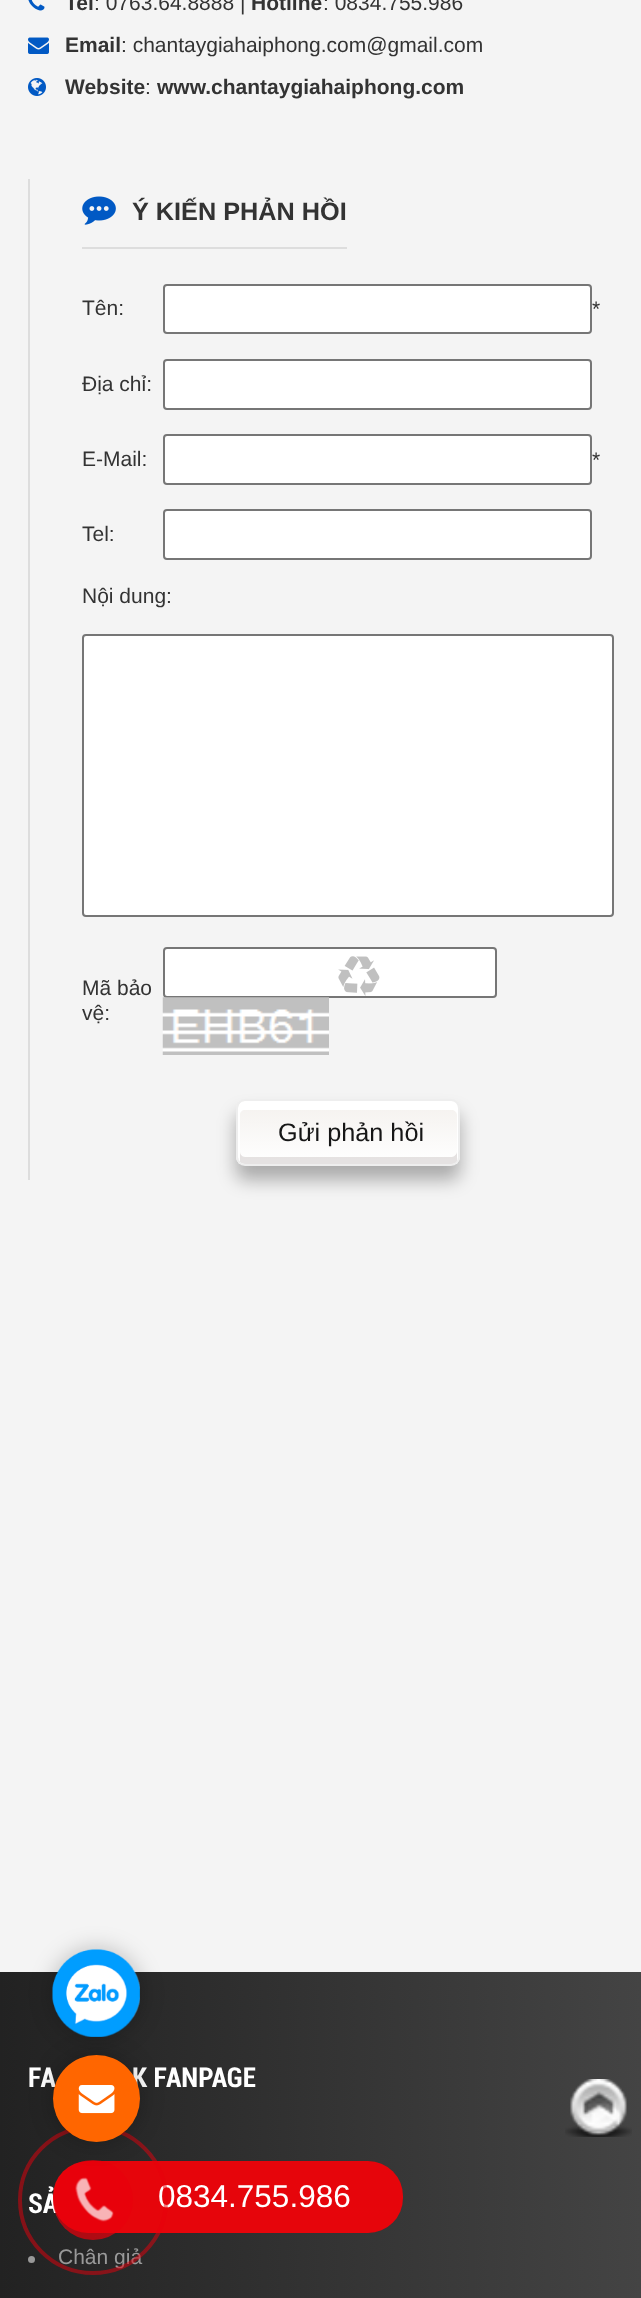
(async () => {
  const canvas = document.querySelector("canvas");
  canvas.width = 641;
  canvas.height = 2298;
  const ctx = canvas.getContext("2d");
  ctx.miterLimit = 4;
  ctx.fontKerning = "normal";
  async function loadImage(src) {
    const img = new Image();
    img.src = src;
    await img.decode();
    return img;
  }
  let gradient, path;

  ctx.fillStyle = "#f4f4f4";
  ctx.fillRect(0, 0, 641, 2298);
  ctx.drawImage(await loadImage("img/1.png"), 28, 0, 17, 11);
  ctx.drawImage(await loadImage("img/2.png"), 28, 37, 21, 17);
  ctx.drawImage(await loadImage("img/3.png"), 28, 78, 18, 18);
  ctx.fillStyle = "#dddddd";
  ctx.fillRect(28, 179, 2, 1001);
  ctx.fillRect(82, 247, 265, 2);
  ctx.drawImage(await loadImage("img/4.png"), 82, 196, 34, 29);
  ctx.fillStyle = "#ffffff";
  ctx.beginPath();
  ctx.roundRect(164, 285, 427, 48, 3);
  ctx.fill();
  ctx.strokeStyle = "#767676";
  ctx.lineWidth = 2;
  ctx.stroke();
  ctx.beginPath();
  ctx.roundRect(164, 360, 427, 49, 3);
  ctx.fill();
  ctx.stroke();
  ctx.beginPath();
  ctx.roundRect(164, 435, 427, 49, 3);
  ctx.fill();
  ctx.stroke();
  ctx.beginPath();
  ctx.roundRect(164, 510, 427, 49, 3);
  ctx.fill();
  ctx.stroke();
  ctx.beginPath();
  ctx.roundRect(83, 635, 530, 281, 3);
  ctx.fill();
  ctx.stroke();
  ctx.beginPath();
  ctx.roundRect(164, 948, 332, 49, 3);
  ctx.fill();
  ctx.stroke();
  ctx.drawImage(await loadImage("img/5.png"), 338, 956, 42, 40);
  ctx.drawImage(await loadImage("img/6.png"), 162, 997, 167, 58);
  ctx.fillStyle = "rgba(0, 0, 0, 0.3)";
  ctx.filter = "blur(9px)";
  ctx.beginPath();
  ctx.roundRect(236, 1113, 224, 67, 9);
  ctx.fill();
  ctx.filter = "none";
  ctx.save();
  ctx.beginPath();
  ctx.roundRect(236, 1099, 224, 67, 9);
  ctx.clip();
  gradient = ctx.createLinearGradient(348, 1101, 348, 1164);
  gradient.addColorStop(0, "#f4f1ee");
  gradient.addColorStop(1, "#ffffff");
  ctx.fillStyle = gradient;
  ctx.fillRect(236, 1101, 224, 63);
  ctx.restore();
  ctx.fillStyle = "rgba(204, 198, 197, 0.5)";
  path = new Path2D("M240 1103C239 1104 238 1106 238 1108V1157C238 1161 241 1164 245 1164H452C456 1164 459 1161 459 1157V1108C459 1106 458 1104 457 1103V1152C457 1154 454 1157 452 1157H245C242 1157 240 1154 240 1152Z");
  ctx.fill(path);
  ctx.fillStyle = "#ffffff";
  path = new Path2D("M245 1110H452C454 1110 457 1112 457 1115V1162C458 1161 459 1159 459 1157V1108C459 1104 456 1101 452 1101H245C241 1101 238 1104 238 1108V1157C238 1159 239 1161 240 1162V1115C240 1112 242 1110 245 1110Z");
  ctx.fill(path);
  ctx.beginPath();
  ctx.roundRect(237, 1100, 222, 65, 8);
  ctx.strokeStyle = "#eeeeee";
  ctx.stroke();
  gradient = ctx.createLinearGradient(0, 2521, 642, 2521);
  gradient.addColorStop(0, "#222222");
  gradient.addColorStop(1, "#444444");
  ctx.fillStyle = gradient;
  ctx.fillRect(0, 1972, 641, 326);
  ctx.fillStyle = "#999999";
  ctx.beginPath();
  ctx.arc(31.5, 2259.5, 3.5, 0, Math.PI * 2);
  ctx.fill();
  ctx.fillStyle = "rgba(0, 0, 0, 0.25)";
  ctx.filter = "blur(11.5px)";
  ctx.beginPath();
  ctx.roundRect(53, 1950, 87, 87, 43.5);
  ctx.fill();
  ctx.filter = "none";
  ctx.drawImage(await loadImage("img/9.png"), 565, 2079, 67, 58);
  ctx.font = "bold 21px Liberation Sans";
  ctx.fillStyle = "#333333";
  ctx.fillText("Tel", 65, 10);
  ctx.font = "21px Liberation Sans";
  ctx.fillText(": 0763.64.8888 |", 94, 10);
  ctx.font = "bold 21px Liberation Sans";
  ctx.fillText("Hotline", 251, 10);
  ctx.font = "21px Liberation Sans";
  ctx.fillText(": 0834.755.986", 323, 10);
  ctx.font = "bold 21px Liberation Sans";
  ctx.fillText("Email", 65, 52);
  ctx.font = "21px Liberation Sans";
  ctx.fillText(": chantaygiahaiphong.com@gmail.com", 121, 52);
  ctx.font = "bold 21px Liberation Sans";
  ctx.fillText("Website", 65, 94);
  ctx.font = "21px Liberation Sans";
  ctx.fillText(":", 145, 94);
  ctx.font = "bold 21px Liberation Sans";
  ctx.fillText("www.chantaygiahaiphong.com", 157, 94);
  ctx.font = "bold 25.25px Liberation Sans";
  ctx.fillText("Ý KIẾN PHẢN HỒI", 132, 220);
  ctx.font = "21px Liberation Sans";
  for (const [text, x, y] of [
    ["Tên:", 82, 315],
    ["*", 592, 316],
    ["Địa chỉ:", 82, 391],
    ["E-Mail:", 82, 466],
    ["*", 592, 467],
    ["Tel:", 82, 541],
    ["Nội dung:", 82, 603],
    ["Mã bảo", 82, 995],
    ["vệ:", 82, 1020],
  ]) {
    ctx.fillText(text, x, y);
  }
  ctx.font = "25.25px Liberation Sans";
  ctx.fillStyle = "#161616";
  ctx.fillText("Gửi phản hồi", 278, 1141);
  ctx.font = "bold 27.5px Roboto";
  ctx.fillStyle = "#ffffff";
  for (const [text, x, y] of [
    ["FA", 28, 2087],
    ["K FANPAGE", 132, 2087],
    ["SẢ", 28, 2213],
  ]) {
    ctx.fillText(text, x, y);
  }
  ctx.font = "21px Liberation Sans";
  ctx.fillStyle = "#999999";
  ctx.fillText("Chân giả", 58, 2264);
  ctx.fillStyle = "#e6050b";
  ctx.beginPath();
  ctx.roundRect(53, 2161, 350, 72, 35);
  ctx.fill();
  ctx.font = "31.5px Liberation Sans";
  ctx.fillStyle = "#ffffff";
  ctx.fillText("0834.755.986", 158, 2207);
  ctx.beginPath();
  ctx.arc(93, 2200, 73, 0, Math.PI * 2);
  ctx.strokeStyle = "rgba(232, 0, 11, 0.5)";
  ctx.lineWidth = 4;
  ctx.stroke();
  ctx.fillStyle = "rgba(232, 0, 11, 0.7)";
  ctx.beginPath();
  ctx.arc(93, 2200, 40, 0, Math.PI * 2);
  ctx.fill();
  ctx.drawImage(await loadImage("img/10.png"), 75, 2177, 39, 45);
  ctx.fillStyle = "rgba(0, 0, 0, 0.25)";
  ctx.filter = "blur(11.5px)";
  ctx.beginPath();
  ctx.roundRect(53, 2055, 87, 87, 43.5);
  ctx.fill();
  ctx.filter = "none";
  ctx.fillStyle = "#ff6600";
  ctx.beginPath();
  ctx.arc(96.5, 2098.5, 43.5, 0, Math.PI * 2);
  ctx.fill();
  ctx.drawImage(await loadImage("img/8.png"), 78, 2085, 37, 29);
  ctx.drawImage(await loadImage("img/7.png"), 52, 1949, 88, 88);
})();
